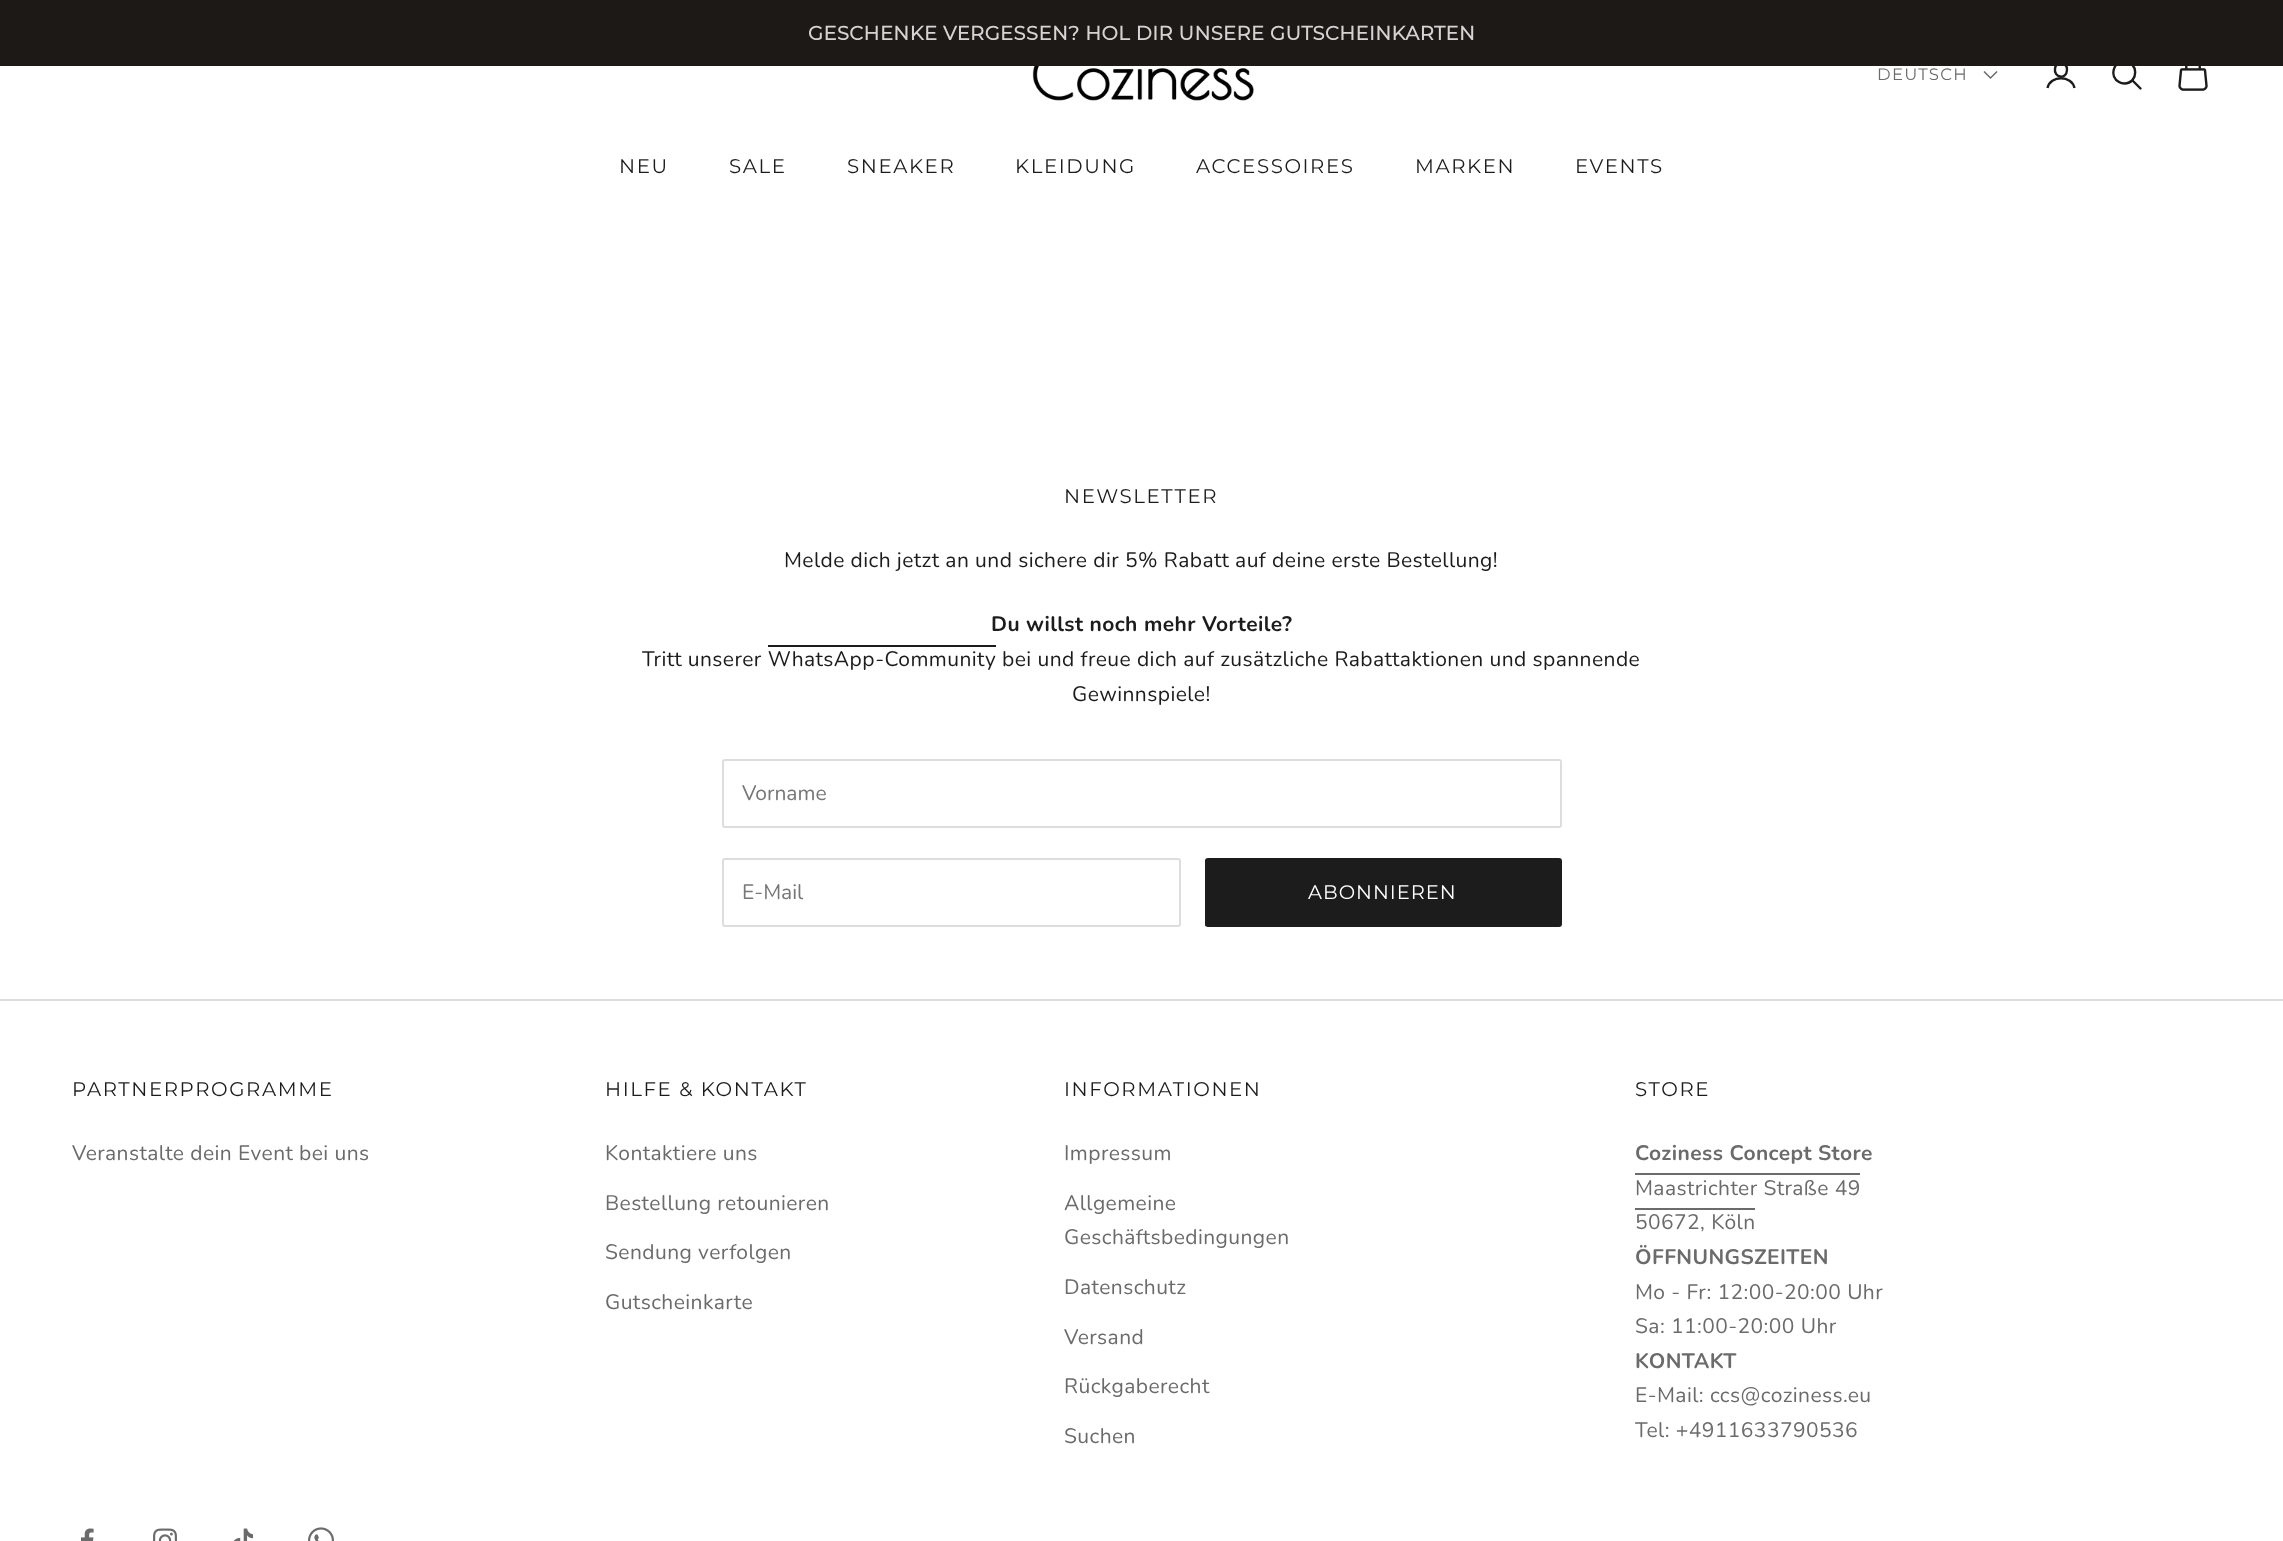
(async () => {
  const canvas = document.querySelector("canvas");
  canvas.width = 2283;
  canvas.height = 1541;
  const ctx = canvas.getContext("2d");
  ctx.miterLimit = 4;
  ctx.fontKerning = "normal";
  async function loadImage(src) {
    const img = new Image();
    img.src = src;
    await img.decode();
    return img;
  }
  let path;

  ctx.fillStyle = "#ffffff";
  ctx.fillRect(0, 0, 2283, 1541);
  path = new Path2D("M2067 70C2066.5 80 2053.5 78 2055 68.5C2056 61 2068 62 2067 70Z");
  ctx.strokeStyle = "#1c1c1c";
  ctx.lineWidth = 2.4;
  ctx.lineCap = "round";
  ctx.lineJoin = "round";
  ctx.stroke(path);
  path = new Path2D("M2124.5 61.5C2113 61.5 2109 76.5 2119 82C2120.5 83 2122.5 83.5 2124.5 83.5C2139 83 2138.5 61.5 2124.5 61.5Z");
  ctx.lineCap = "butt";
  ctx.lineJoin = "miter";
  ctx.stroke(path);
  ctx.fillStyle = "#1c1917";
  ctx.fillRect(0, 0, 2283, 66);
  ctx.drawImage(await loadImage("img/1.png"), 1032, 66, 222, 35);
  path = new Path2D("M1984.5 72L1990.5 78L1996.5 72");
  ctx.strokeStyle = "#6b6b6b";
  ctx.lineWidth = 1.5;
  ctx.lineCap = "square";
  ctx.stroke(path);
  path = new Path2D("M2047.5 88C2050 75 2072 75 2074.5 88");
  ctx.strokeStyle = "#1c1c1c";
  ctx.lineWidth = 2.4;
  ctx.lineCap = "butt";
  ctx.stroke(path);
  path = new Path2D("M2133 81L2140.5 88.5");
  ctx.lineCap = "round";
  ctx.stroke(path);
  ctx.drawImage(await loadImage("img/2.png"), 2178, 66, 30, 25);
  ctx.fillStyle = "#1c1c1c";
  ctx.fillRect(768, 645, 228, 2);
  ctx.beginPath();
  ctx.roundRect(723, 760, 838, 67, 2);
  ctx.strokeStyle = "#dddddd";
  ctx.lineWidth = 2;
  ctx.stroke();
  ctx.beginPath();
  ctx.roundRect(723, 859, 457, 67, 2);
  ctx.stroke();
  ctx.save();
  ctx.beginPath();
  ctx.roundRect(1205, 858, 357, 69, 3);
  ctx.clip();
  ctx.fillRect(1205, 860, 355, 66);
  ctx.restore();
  ctx.beginPath();
  ctx.roundRect(1206, 859, 355, 67, 2);
  ctx.strokeStyle = "#1c1c1c";
  ctx.stroke();
  for (const [x, y, w, h, color] of [
    [0, 999, 2283, 2, "#dddddd"],
    [1635, 1173, 225, 2, "#6b6b6b"],
    [1635, 1208, 120, 2, "#6b6b6b"],
  ]) {
    ctx.fillStyle = color;
    ctx.fillRect(x, y, w, h);
  }
  ctx.drawImage(await loadImage("img/3.png"), 81, 1528, 13, 13);
  ctx.drawImage(await loadImage("img/4.png"), 153, 1528, 24, 13);
  ctx.drawImage(await loadImage("img/5.png"), 234, 1528, 20, 13);
  ctx.drawImage(await loadImage("img/6.png"), 308, 1527, 26, 14);
  ctx.letterSpacing = "0.42px";
  ctx.font = "bold 19.5px Montserrat";
  ctx.fillStyle = "#d6d3d1";
  ctx.fillText("GESCHENKE VERGESSEN? HOL DIR UNSERE GUTSCHEINKARTEN", 808, 40);
  ctx.letterSpacing = "1.25px";
  ctx.font = "16.5px Montserrat";
  ctx.fillStyle = "#6b6b6b";
  ctx.fillText("DEUTSCH", 1877, 80);
  ctx.letterSpacing = "1.6px";
  ctx.font = "19.75px Montserrat";
  ctx.fillStyle = "#1c1c1c";
  for (const [text, x, y] of [
    ["NEU", 619, 173],
    ["SALE", 729, 173],
    ["SNEAKER", 847, 173],
    ["KLEIDUNG", 1015, 173],
    ["ACCESSOIRES", 1196, 173],
    ["MARKEN", 1415, 173],
    ["EVENTS", 1575, 173],
    ["NEWSLETTER", 1064, 503],
  ]) {
    ctx.fillText(text, x, y);
  }
  ctx.letterSpacing = "0.42px";
  ctx.font = "21px Nunito";
  ctx.fillText("Melde dich jetzt an und sichere dir 5% Rabatt auf deine erste Bestellung!", 784, 567);
  ctx.font = "bold 21px Nunito";
  ctx.fillText("Du willst noch mehr Vorteile?", 991, 631);
  ctx.font = "21px Nunito";
  ctx.fillText("Tritt unserer WhatsApp-Community bei und freue dich auf zusätzliche Rabattaktionen und spannende", 642, 666);
  ctx.fillText("Gewinnspiele!", 1072, 701);
  ctx.letterSpacing = "0px";
  ctx.fillStyle = "#777777";
  ctx.fillText("Vorname", 742, 800);
  ctx.fillText("E-Mail", 742, 899);
  ctx.letterSpacing = "1px";
  ctx.font = "19.5px Montserrat";
  ctx.fillStyle = "#ffffff";
  ctx.fillText("ABONNIEREN", 1308, 899);
  ctx.letterSpacing = "1.6px";
  ctx.font = "19.75px Montserrat";
  ctx.fillStyle = "#1c1c1c";
  ctx.fillText("PARTNERPROGRAMME", 72, 1096);
  ctx.letterSpacing = "0.42px";
  ctx.font = "21px Nunito";
  ctx.fillStyle = "#6b6b6b";
  ctx.fillText("Veranstalte dein Event bei uns", 72, 1160);
  ctx.letterSpacing = "1.6px";
  ctx.font = "19.75px Montserrat";
  ctx.fillStyle = "#1c1c1c";
  ctx.fillText("HILFE & KONTAKT", 605, 1096);
  ctx.letterSpacing = "0.42px";
  ctx.font = "21px Nunito";
  ctx.fillStyle = "#6b6b6b";
  for (const [text, x, y] of [
    ["Kontaktiere uns", 605, 1160],
    ["Bestellung retounieren", 605, 1210],
    ["Sendung verfolgen", 605, 1259],
    ["Gutscheinkarte", 605, 1309],
  ]) {
    ctx.fillText(text, x, y);
  }
  ctx.letterSpacing = "1.6px";
  ctx.font = "19.75px Montserrat";
  ctx.fillStyle = "#1c1c1c";
  ctx.fillText("INFORMATIONEN", 1064, 1096);
  ctx.letterSpacing = "0.42px";
  ctx.font = "21px Nunito";
  ctx.fillStyle = "#6b6b6b";
  for (const [text, x, y] of [
    ["Impressum", 1064, 1160],
    ["Allgemeine", 1064, 1210],
    ["Geschäftsbedingungen", 1064, 1244],
    ["Datenschutz", 1064, 1294],
    ["Versand", 1064, 1344],
    ["Rückgaberecht", 1064, 1393],
    ["Suchen", 1064, 1443],
  ]) {
    ctx.fillText(text, x, y);
  }
  ctx.letterSpacing = "1.6px";
  ctx.font = "19.75px Montserrat";
  ctx.fillStyle = "#1c1c1c";
  ctx.fillText("STORE", 1635, 1096);
  ctx.letterSpacing = "0.42px";
  ctx.font = "bold 21px Nunito";
  ctx.fillStyle = "#6b6b6b";
  ctx.fillText("Coziness Concept Store", 1635, 1160);
  ctx.font = "21px Nunito";
  ctx.fillText("Maastrichter Straße 49", 1635, 1195);
  ctx.fillText("50672, Köln", 1635, 1229);
  ctx.font = "bold 21px Nunito";
  ctx.fillText("ÖFFNUNGSZEITEN", 1635, 1264);
  ctx.font = "21px Nunito";
  ctx.fillText("Mo - Fr: 12:00-20:00 Uhr", 1635, 1299);
  ctx.fillText("Sa: 11:00-20:00 Uhr", 1635, 1333);
  ctx.font = "bold 21px Nunito";
  ctx.fillText("KONTAKT", 1635, 1368);
  ctx.font = "21px Nunito";
  ctx.fillText("E-Mail: ccs@coziness.eu", 1635, 1402);
  ctx.fillText("Tel: +4911633790536", 1635, 1437);
})();
